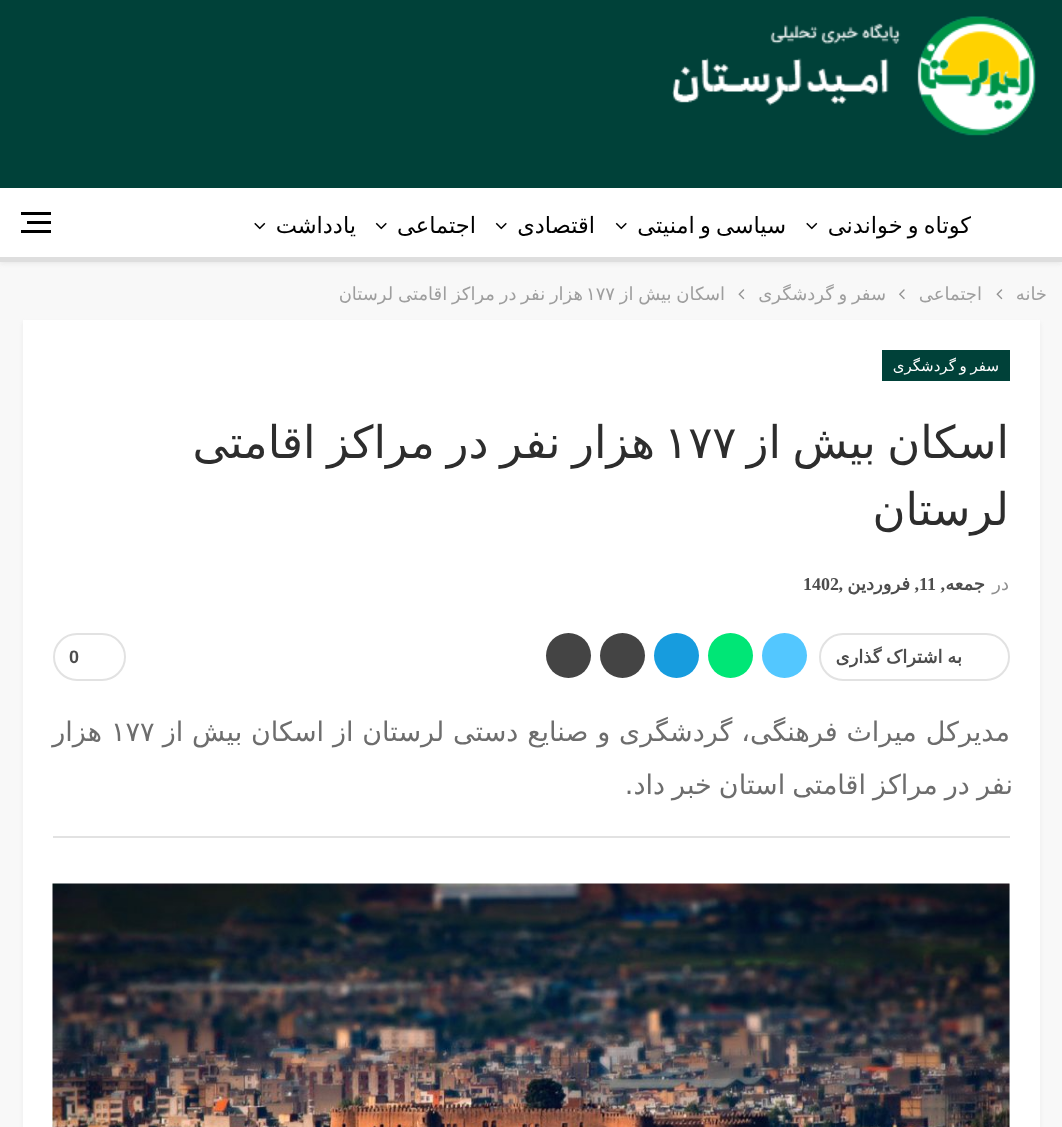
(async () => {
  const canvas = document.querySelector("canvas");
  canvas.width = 1062;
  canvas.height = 1127;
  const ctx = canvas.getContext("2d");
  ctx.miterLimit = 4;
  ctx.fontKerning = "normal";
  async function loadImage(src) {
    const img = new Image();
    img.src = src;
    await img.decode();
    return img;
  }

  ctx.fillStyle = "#f8f8f8";
  ctx.fillRect(0, 0, 1062, 1127);
  ctx.fillStyle = "rgba(204, 204, 204, 0.3)";
  ctx.filter = "blur(2px)";
  ctx.beginPath();
  ctx.rect(0, 3, 1062, 261);
  ctx.fill();
  ctx.filter = "none";
  ctx.fillStyle = "#004139";
  ctx.fillRect(0, 0, 1062, 188);
  ctx.drawImage(await loadImage("img/1.png"), 672, 16, 364, 120);
  ctx.fillStyle = "#ffffff";
  ctx.fillRect(0, 188, 1062, 69);
  ctx.fillStyle = "#dedede";
  ctx.fillRect(0, 257, 1062, 5);
  ctx.drawImage(await loadImage("img/2.png"), 806, 222, 12, 8);
  ctx.drawImage(await loadImage("img/3.png"), 615, 222, 12, 8);
  ctx.drawImage(await loadImage("img/3.png"), 495, 222, 12, 8);
  ctx.drawImage(await loadImage("img/3.png"), 375, 222, 12, 8);
  ctx.drawImage(await loadImage("img/2.png"), 254, 222, 12, 8);
  for (const [x, y, w, h, color] of [
    [27, 221, 24, 3, "#000000"],
    [21, 212, 30, 3, "#000000"],
    [21, 230, 30, 3, "#000000"],
  ]) {
    ctx.fillStyle = color;
    ctx.fillRect(x, y, w, h);
  }
  ctx.drawImage(await loadImage("img/4.png"), 996, 289, 7, 11);
  ctx.drawImage(await loadImage("img/5.png"), 899, 289, 6, 11);
  ctx.drawImage(await loadImage("img/4.png"), 738, 289, 7, 11);
  ctx.fillStyle = "rgba(204, 204, 204, 0.3)";
  ctx.filter = "blur(2px)";
  ctx.beginPath();
  ctx.rect(23, 323, 1017, 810);
  ctx.fill();
  ctx.filter = "none";
  ctx.fillStyle = "#ffffff";
  ctx.fillRect(23, 320, 1017, 807);
  ctx.fillStyle = "#004139";
  ctx.fillRect(882, 350, 128, 31);
  ctx.beginPath();
  ctx.roundRect(820, 634, 189, 46, 23);
  ctx.strokeStyle = "#e2e2e2";
  ctx.lineWidth = 2;
  ctx.stroke();
  ctx.fillStyle = "#53c7ff";
  ctx.beginPath();
  ctx.arc(784.5, 655.5, 22.5, 0, Math.PI * 2);
  ctx.fill();
  ctx.fillStyle = "#00e676";
  ctx.beginPath();
  ctx.arc(730.5, 655.5, 22.5, 0, Math.PI * 2);
  ctx.fill();
  ctx.fillStyle = "#179cde";
  ctx.beginPath();
  ctx.arc(676.5, 655.5, 22.5, 0, Math.PI * 2);
  ctx.fill();
  ctx.fillStyle = "#444444";
  ctx.beginPath();
  ctx.arc(622.5, 655.5, 22.5, 0, Math.PI * 2);
  ctx.fill();
  ctx.beginPath();
  ctx.arc(568.5, 655.5, 22.5, 0, Math.PI * 2);
  ctx.fill();
  ctx.beginPath();
  ctx.roundRect(54, 634, 71, 46, 23);
  ctx.stroke();
  ctx.fillStyle = "#e2e2e2";
  ctx.fillRect(53, 836, 957, 2);
  ctx.fillStyle = "#e9ebee";
  ctx.fillRect(1009, 884, 1, 243);
  ctx.drawImage(await loadImage("img/6.png"), 52, 883, 958, 244);
  ctx.wordSpacing = "-2px";
  ctx.direction = "rtl";
  ctx.font = "22.5px DejaVu Sans";
  ctx.fillStyle = "#000000";
  ctx.fillText("کوتاه و خواندنی", 971, 233);
  ctx.fillText("سیاسی و امنیتی", 786, 233);
  ctx.wordSpacing = "0px";
  for (const [text, x, y] of [
    ["اقتصادی", 595, 233],
    ["اجتماعی", 476, 233],
    ["یادداشت", 356, 233],
  ]) {
    ctx.fillText(text, x, y);
  }
  ctx.font = "18px DejaVu Sans";
  ctx.fillStyle = "#9e9e9e";
  ctx.fillText("خانه", 1047, 300);
  ctx.fillText("اجتماعی", 982, 300);
  ctx.wordSpacing = "-1px";
  ctx.fillText("سفر و گردشگری", 886, 300);
  ctx.fillText("اسکان بیش از", 725, 300);
  ctx.wordSpacing = "0px";
  ctx.direction = "ltr";
  ctx.fillText("۱۷۷", 586, 300);
  ctx.wordSpacing = "-1px";
  ctx.direction = "rtl";
  ctx.fillText("هزار نفر در مراکز اقامتی لرستان", 583, 300);
  ctx.font = "15px DejaVu Sans";
  ctx.fillStyle = "#ffffff";
  ctx.fillText("سفر و گردشگری", 999, 371);
  ctx.save();
  ctx.beginPath();
  ctx.rect(53, 350, 957, 253);
  ctx.clip();
  ctx.wordSpacing = "-3px";
  ctx.font = "45px DejaVu Sans";
  ctx.fillStyle = "#2d2d2d";
  ctx.fillText("اسکان بیش از", 1009, 458);
  ctx.restore();
  ctx.wordSpacing = "0px";
  ctx.direction = "ltr";
  ctx.font = "45px DejaVu Sans";
  ctx.fillStyle = "#2d2d2d";
  ctx.fillText("۱۷۷", 664, 458);
  ctx.wordSpacing = "-2.5px";
  ctx.direction = "rtl";
  ctx.fillText("هزار نفر در مراکز اقامتی", 655, 458);
  ctx.wordSpacing = "0px";
  ctx.fillText("لرستان", 1009, 525);
  ctx.font = "18px DejaVu Sans";
  ctx.fillStyle = "#8f8f8f";
  ctx.fillText("در", 1009, 590);
  ctx.font = "bold 18px DejaVu Sans";
  ctx.fillStyle = "#4d4d4d";
  ctx.fillText("جمعه", 985, 590);
  ctx.font = "bold 18px Liberation Serif";
  ctx.fillText(",", 945, 590);
  ctx.direction = "ltr";
  ctx.fillText("11", 919, 590);
  ctx.direction = "rtl";
  ctx.fillText(",", 919, 590);
  ctx.font = "bold 18px DejaVu Sans";
  ctx.fillText("فروردین", 910, 590);
  ctx.font = "bold 18px Liberation Serif";
  ctx.fillText(",", 843, 590);
  ctx.direction = "ltr";
  ctx.fillText("1402", 803, 590);
  ctx.wordSpacing = "-1px";
  ctx.direction = "rtl";
  ctx.font = "bold 18px DejaVu Sans";
  ctx.fillText("به اشتراک گذاری", 962, 663);
  ctx.wordSpacing = "0px";
  ctx.direction = "ltr";
  ctx.font = "bold 18px Liberation Sans";
  ctx.fillText("0", 69, 663);
  ctx.wordSpacing = "0.25px";
  ctx.direction = "rtl";
  ctx.font = "27px DejaVu Sans";
  ctx.fillStyle = "#6d6d6d";
  ctx.fillText("مدیرکل میراث‌ فرهنگی، گردشگری و صنایع‌ دستی لرستان از اسکان بیش از", 1010, 741);
  ctx.wordSpacing = "0px";
  ctx.direction = "ltr";
  ctx.fillText("۱۷۷", 111, 741);
  ctx.direction = "rtl";
  ctx.fillText("هزار", 102, 741);
  ctx.wordSpacing = "-1.5px";
  ctx.fillText("نفر در مراکز اقامتی استان خبر داد.", 1013, 794);
})();
